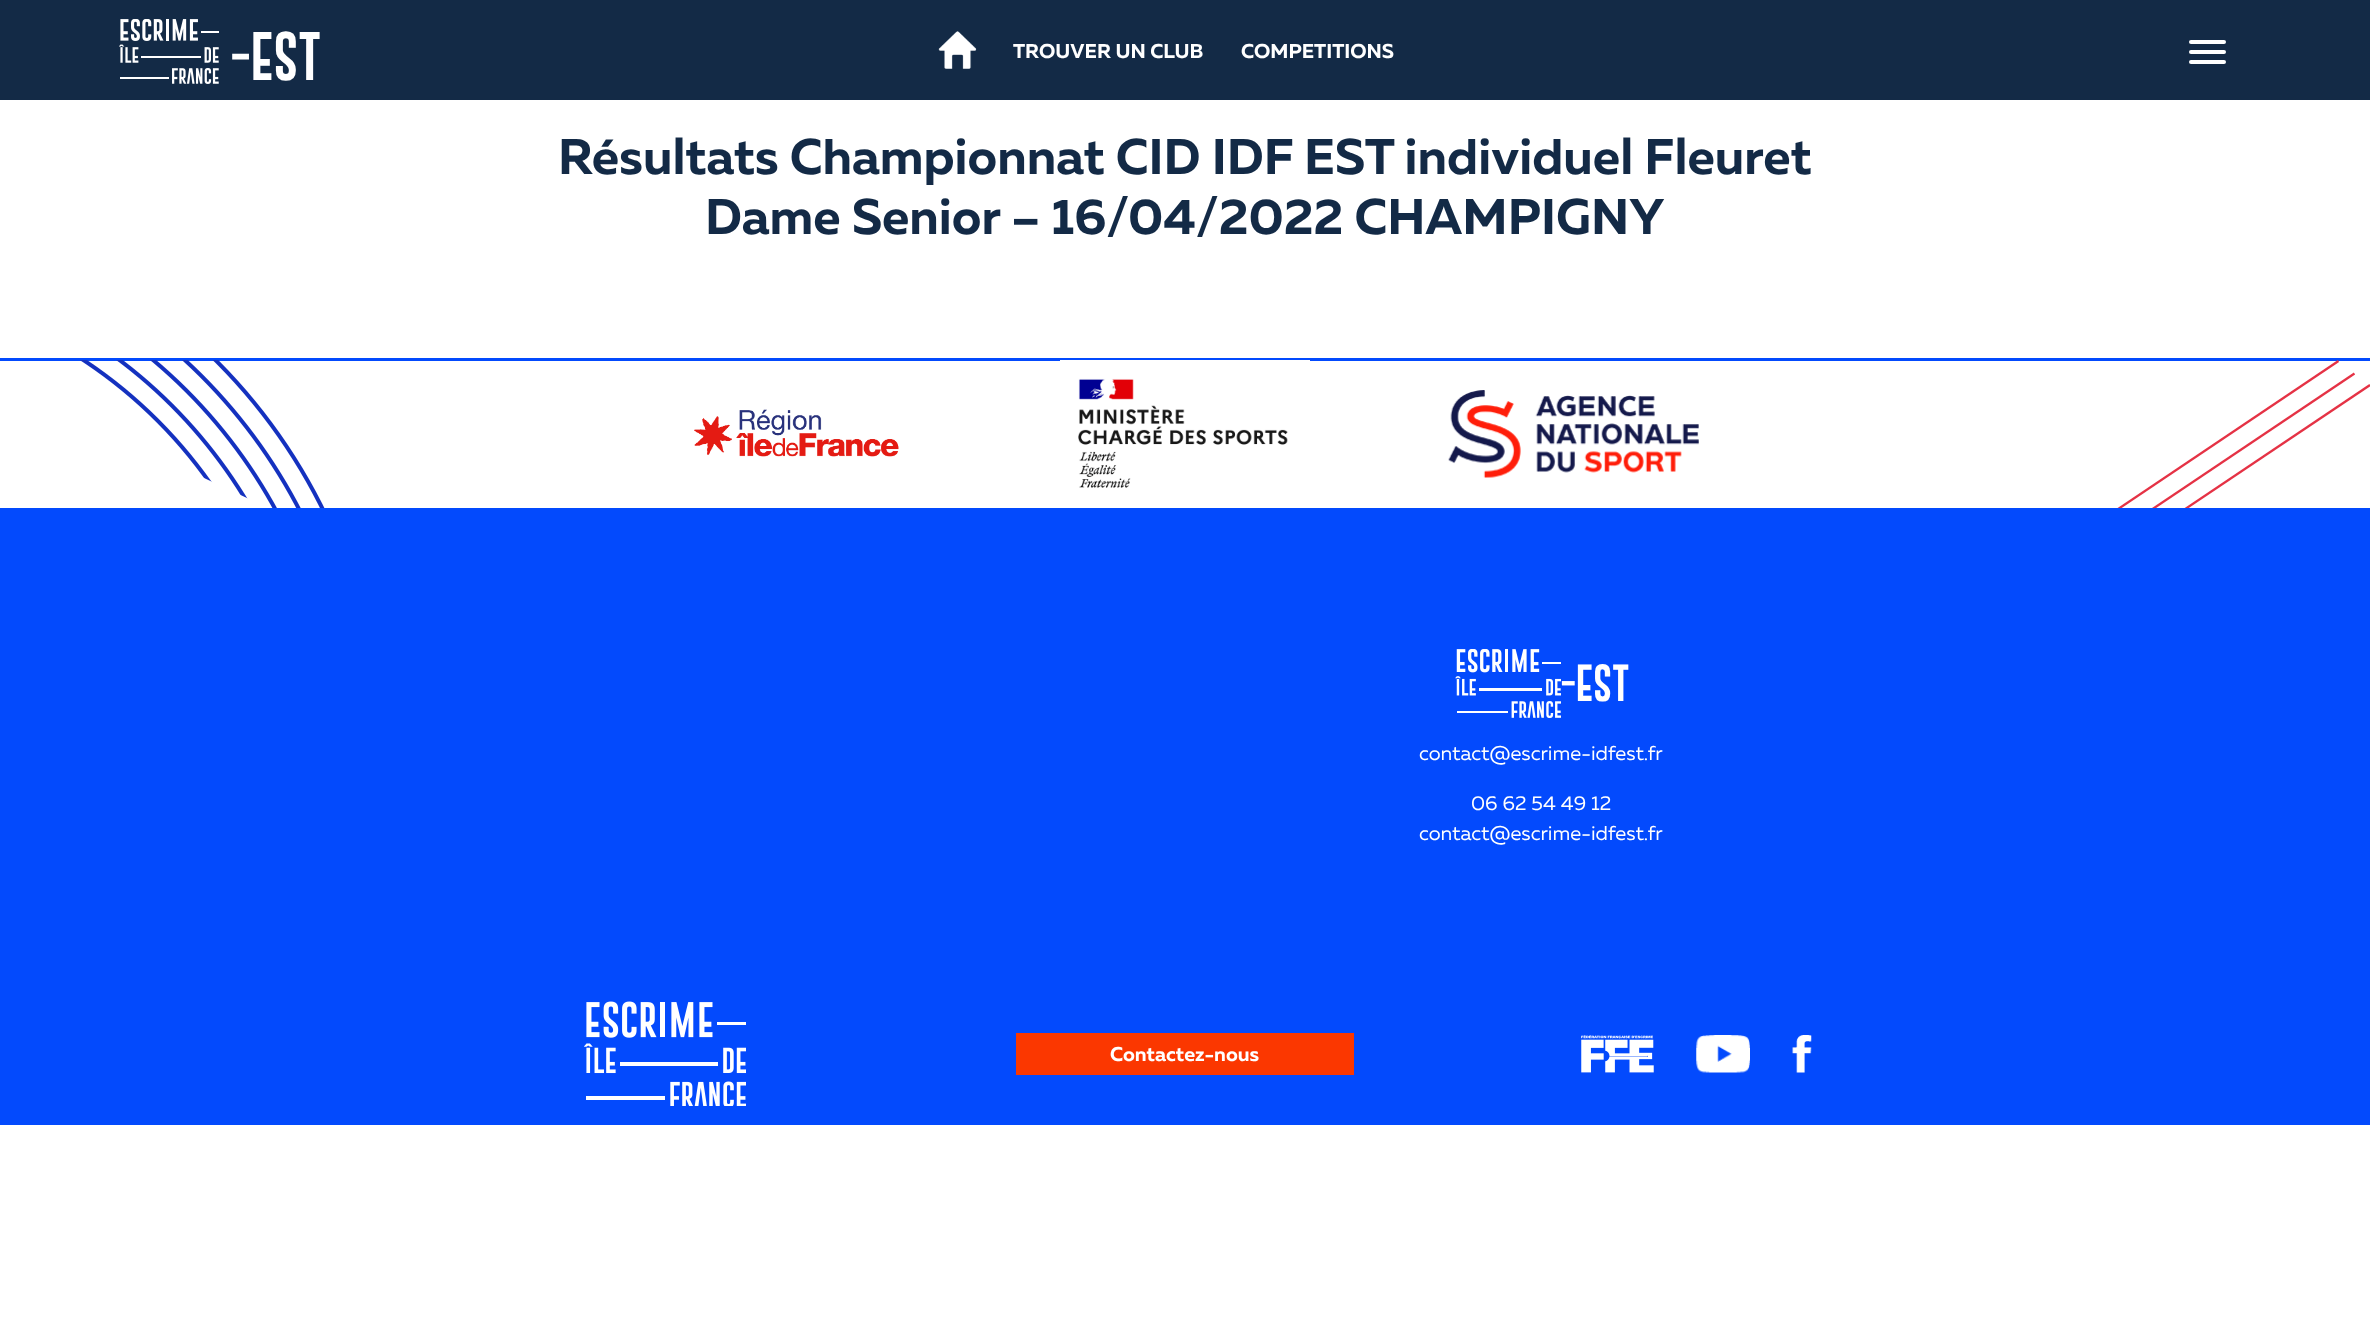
(async () => {
  const canvas = document.querySelector("canvas");
  canvas.width = 2370;
  canvas.height = 1320;
  const ctx = canvas.getContext("2d");
  ctx.miterLimit = 4;
  ctx.fontKerning = "normal";
  async function loadImage(src) {
    const img = new Image();
    img.src = src;
    await img.decode();
    return img;
  }
  let path;

  ctx.fillStyle = "#ffffff";
  ctx.fillRect(0, 0, 2370, 1320);
  ctx.fillStyle = "#132a46";
  ctx.fillRect(0, 0, 2370, 100);
  ctx.drawImage(await loadImage("img/1.png"), 119, 19, 100, 65);
  ctx.drawImage(await loadImage("img/2.png"), 938, 31, 39, 38);
  ctx.fillStyle = "#ffffff";
  ctx.beginPath();
  ctx.roundRect(2189, 40, 37, 4, 2);
  ctx.fill();
  ctx.beginPath();
  ctx.roundRect(2189, 50, 37, 4, 2);
  ctx.fill();
  ctx.beginPath();
  ctx.roundRect(2189, 60, 37, 4, 2);
  ctx.fill();
  ctx.fillStyle = "#034afd";
  ctx.fillRect(0, 358, 2370, 3);
  ctx.drawImage(await loadImage("img/3.png"), 80, 360, 245, 148);
  ctx.drawImage(await loadImage("img/4.png"), 694, 409, 205, 48);
  ctx.drawImage(await loadImage("img/5.png"), 1060, 360, 250, 128);
  ctx.drawImage(await loadImage("img/6.png"), 1448, 390, 251, 88);
  ctx.save();
  ctx.beginPath();
  ctx.rect(1806, 360, 564, 148);
  ctx.clip();
  path = new Path2D("M1822.5 730.5L2354.5 373.5");
  ctx.strokeStyle = "#e53245";
  ctx.lineWidth = 2.3;
  ctx.stroke(path);
  path = new Path2D("M1807 718L2338.5 361");
  ctx.stroke(path);
  path = new Path2D("M1838 742L2370 385");
  ctx.stroke(path);
  ctx.restore();
  ctx.fillRect(0, 508, 2370, 617);
  ctx.drawImage(await loadImage("img/7.png"), 1455, 649, 106, 69);
  ctx.drawImage(await loadImage("img/8.png"), 584, 1001, 162, 105);
  ctx.fillStyle = "#fb3700";
  ctx.fillRect(1016, 1033, 338, 42);
  ctx.drawImage(await loadImage("img/9.png"), 1581, 1035, 73, 38);
  ctx.drawImage(await loadImage("img/10.png"), 1696, 1035, 54, 38);
  ctx.drawImage(await loadImage("img/11.png"), 1792, 1035, 20, 38);
  ctx.font = "bold 50px 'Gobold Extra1'";
  ctx.fillStyle = "#ffffff";
  ctx.fillText("-EST", 231, 80);
  ctx.font = "bold 20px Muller";
  ctx.fillText("TROUVER UN CLUB", 1013, 58);
  ctx.fillText("COMPETITIONS", 1241, 58);
  ctx.font = "bold 50px Muller";
  ctx.fillStyle = "#132a46";
  ctx.fillText("Résultats Championnat CID IDF EST individuel Fleuret", 558, 174);
  ctx.fillText("Dame Senior – 16/04/2022 CHAMPIGNY", 705, 234);
  ctx.font = "bold 38px 'Gobold Extra1'";
  ctx.fillStyle = "#ffffff";
  ctx.fillText("-EST", 1561, 701);
  ctx.font = "20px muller";
  for (const [text, x, y] of [
    ["contact@escrime-idfest.fr", 1419, 760],
    ["06 62 54 49 12", 1471, 810],
    ["contact@escrime-idfest.fr", 1419, 840],
  ]) {
    ctx.fillText(text, x, y);
  }
  ctx.font = "bold 20px Muller";
  ctx.fillText("Contactez-nous", 1110, 1061);
})();
